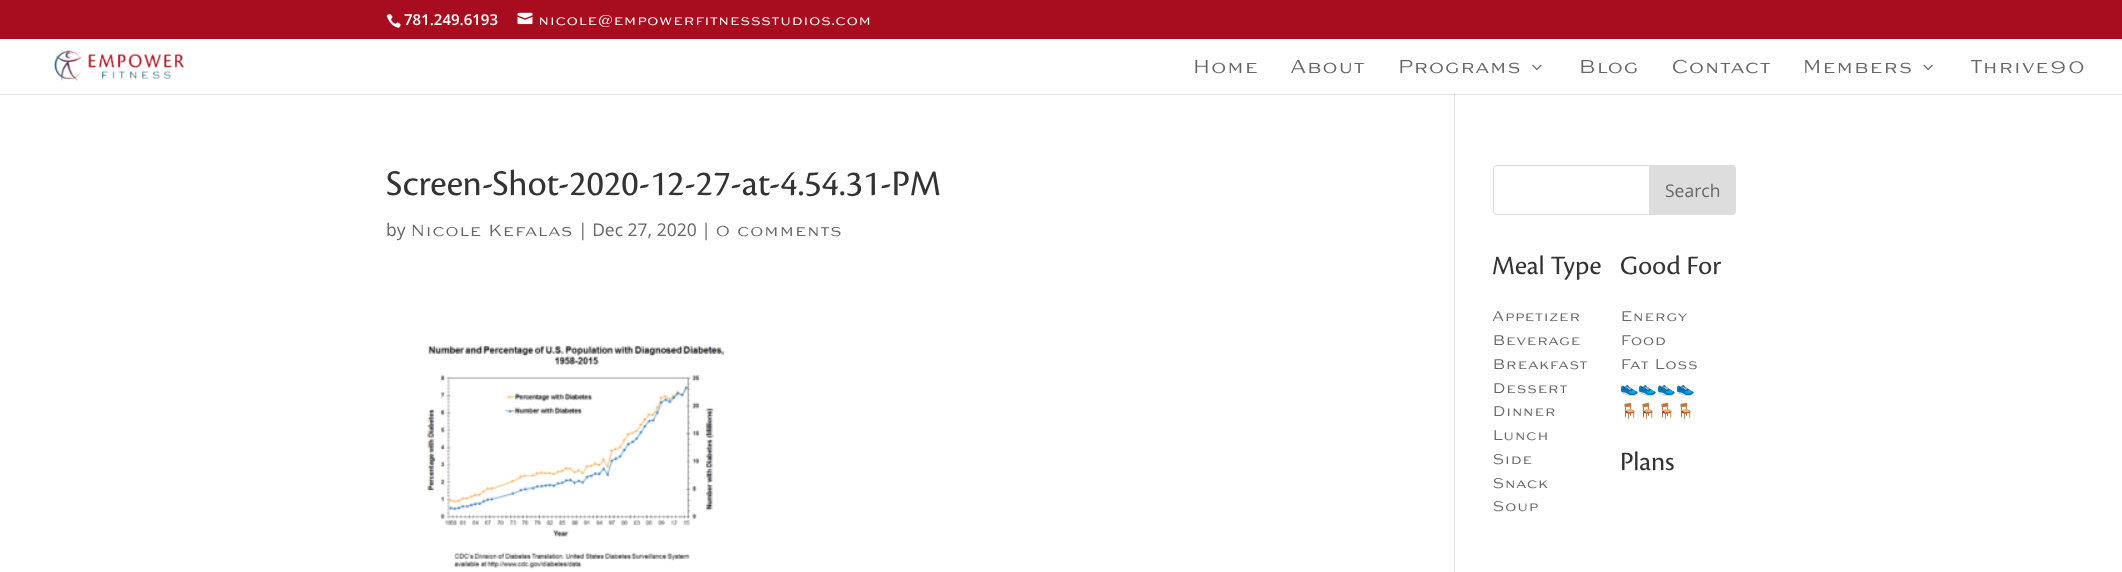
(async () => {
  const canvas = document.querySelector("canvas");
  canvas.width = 2122;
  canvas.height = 572;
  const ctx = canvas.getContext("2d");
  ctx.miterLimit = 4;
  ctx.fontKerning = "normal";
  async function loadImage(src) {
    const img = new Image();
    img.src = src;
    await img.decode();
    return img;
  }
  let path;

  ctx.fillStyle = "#ffffff";
  ctx.fillRect(0, 0, 2122, 572);
  ctx.fillStyle = "#a70d1e";
  ctx.fillRect(0, 0, 2122, 39);
  ctx.drawImage(await loadImage("img/1.png"), 386, 14, 15, 14);
  ctx.drawImage(await loadImage("img/2.png"), 517, 12, 16, 13);
  ctx.fillStyle = "#e2e2e2";
  ctx.fillRect(1454, 93, 1, 479);
  ctx.fillStyle = "rgba(0, 0, 0, 0.1)";
  path = new Path2D("M0 94V95H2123V40H2122V94Z");
  ctx.fill(path);
  ctx.fillStyle = "#ffffff";
  ctx.fillRect(1454, 93, 1, 1);
  ctx.drawImage(await loadImage("img/3.png"), 54, 50, 131, 31);
  ctx.drawImage(await loadImage("img/4.png"), 1532, 64, 10, 6);
  ctx.drawImage(await loadImage("img/5.png"), 1923, 64, 10, 6);
  ctx.drawImage(await loadImage("img/6.png"), 427, 345, 298, 224);
  ctx.beginPath();
  ctx.roundRect(1493.5, 165.5, 242, 49, 3.5);
  ctx.strokeStyle = "#dddddd";
  ctx.stroke();
  ctx.fillStyle = "#dddddd";
  ctx.beginPath();
  ctx.roundRect(1649.5, 165.5, 86, 49, [0, 3.5, 3.5, 0]);
  ctx.fill();
  ctx.stroke();
  ctx.font = "600 15px Open Sans";
  ctx.fillStyle = "#ffffff";
  ctx.fillText("781.249.6193", 404, 25);
  ctx.font = "300 15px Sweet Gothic";
  ctx.fillText("nicole@empowerfitnessstudios.com", 538, 25);
  ctx.font = "300 20px Sweet Gothic";
  ctx.fillStyle = "#666666";
  for (const [text, x, y] of [
    ["Home", 1192, 73],
    ["About", 1290, 73],
    ["Programs", 1397, 73],
    ["Blog", 1578, 73],
    ["Contact", 1671, 73],
    ["Members", 1802, 73],
    ["Thrive90", 1970, 73],
  ]) {
    ctx.fillText(text, x, y);
  }
  ctx.font = "37.5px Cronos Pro";
  ctx.fillStyle = "#333333";
  ctx.fillText("Screen-Shot-2020-12-27-at-4.54.31-PM", 386, 195);
  ctx.font = "17.5px Open Sans";
  ctx.fillStyle = "#666666";
  ctx.fillText("by", 386, 236);
  ctx.font = "300 17.5px Sweet Gothic";
  ctx.fillText("Nicole Kefalas", 410, 236);
  ctx.font = "17.5px Open Sans";
  ctx.fillText("| Dec 27, 2020 |", 578, 236);
  ctx.font = "300 17.5px Sweet Gothic";
  ctx.fillText("0 comments", 715, 236);
  ctx.font = "17.5px Open Sans";
  ctx.fillText("Search", 1665, 197);
  ctx.font = "27.5px Cronos Pro";
  ctx.fillStyle = "#333333";
  ctx.fillText("Meal Type", 1492, 274);
  ctx.font = "300 15px Sweet Gothic";
  ctx.fillStyle = "#666666";
  for (const [text, x, y] of [
    ["Appetizer", 1492, 321],
    ["Beverage", 1492, 345],
    ["Breakfast", 1492, 369],
    ["Dessert", 1492, 393],
    ["Dinner", 1492, 416],
    ["Lunch", 1492, 440],
    ["Side", 1492, 464],
    ["Snack", 1492, 488],
    ["Soup", 1492, 511],
  ]) {
    ctx.fillText(text, x, y);
  }
  ctx.font = "27.5px Cronos Pro";
  ctx.fillStyle = "#333333";
  ctx.fillText("Good For", 1620, 274);
  ctx.font = "300 15px Sweet Gothic";
  ctx.fillStyle = "#666666";
  for (const [text, x, y] of [
    ["Energy", 1620, 321],
    ["Food", 1620, 345],
    ["Fat Loss", 1620, 369],
  ]) {
    ctx.fillText(text, x, y);
  }
  ctx.font = "15px Noto Color Emoji";
  ctx.fillText("👟👟👟👟", 1620, 393);
  ctx.fillText("🪑🪑🪑🪑", 1620, 416);
  ctx.font = "27.5px Cronos Pro";
  ctx.fillStyle = "#333333";
  ctx.fillText("Plans", 1620, 470);
})();
